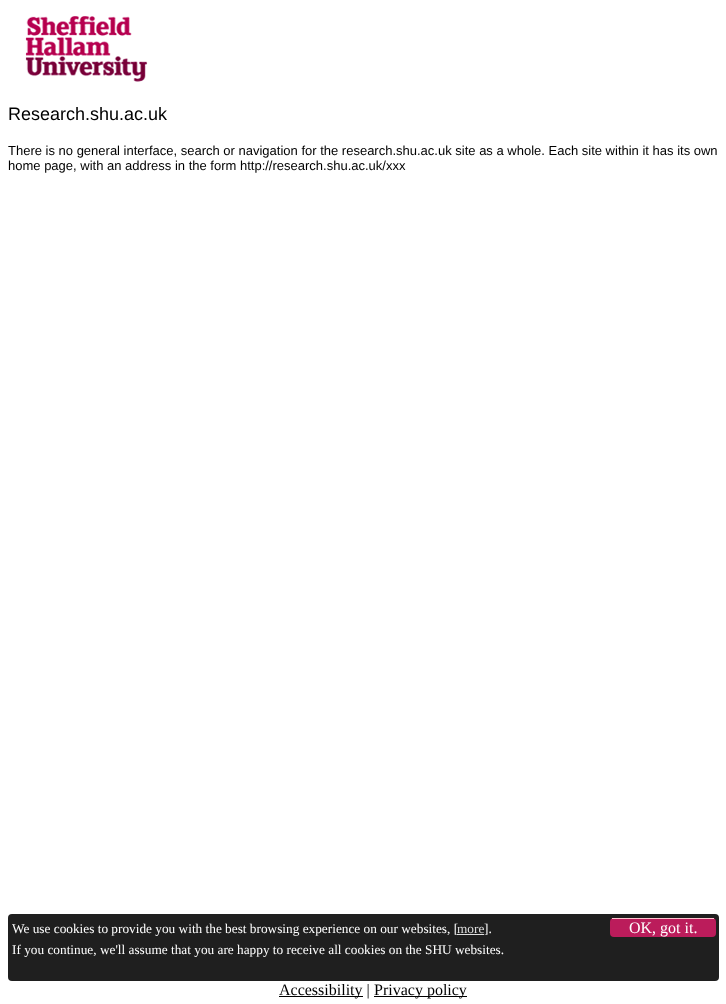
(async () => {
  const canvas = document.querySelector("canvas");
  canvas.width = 726;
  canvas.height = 1004;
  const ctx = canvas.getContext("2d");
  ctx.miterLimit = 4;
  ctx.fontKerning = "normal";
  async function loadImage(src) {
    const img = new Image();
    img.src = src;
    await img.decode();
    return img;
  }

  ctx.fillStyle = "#ffffff";
  ctx.fillRect(0, 0, 726, 1004);
  ctx.drawImage(await loadImage("img/1.png"), 25, 16, 123, 66);
  ctx.fillStyle = "#1f1f1f";
  ctx.beginPath();
  ctx.roundRect(8, 914, 711, 67, 4);
  ctx.fill();
  ctx.fillStyle = "#dfdfdf";
  ctx.fillRect(457, 934, 27, 1);
  ctx.fillStyle = "#bb1c5b";
  ctx.beginPath();
  ctx.roundRect(610, 918, 106, 19, 4);
  ctx.fill();
  for (const [x, y, w, h, color] of [
    [612, 918, 102, 1, "#ffc4ce"],
    [279, 996, 84, 1, "#000000"],
    [374, 996, 93, 1, "#000000"],
  ]) {
    ctx.fillStyle = color;
    ctx.fillRect(x, y, w, h);
  }
  ctx.font = "18px Liberation Sans";
  ctx.fillText("Research.shu.ac.uk", 8, 120);
  ctx.font = "13px Liberation Sans";
  ctx.fillText("There is no general interface, search or navigation for the research.shu.ac.uk site as a whole. Each site within it has its own", 8, 155);
  ctx.fillText("home page, with an address in the form http://research.shu.ac.uk/xxx", 8, 170);
  ctx.font = "13.3px Liberation Serif";
  ctx.fillStyle = "#ffffff";
  ctx.fillText("We use cookies to provide you with the best browsing experience on our websites, [", 12, 933);
  ctx.fillStyle = "#dfdfdf";
  ctx.fillText("more", 457, 933);
  ctx.fillStyle = "#ffffff";
  ctx.fillText("].", 484, 933);
  ctx.fillText("If you continue, we'll assume that you are happy to receive all cookies on the SHU websites.", 12, 954);
  ctx.font = "16px Liberation Serif";
  ctx.fillText("OK, got it.", 629, 933);
  ctx.fillStyle = "#000000";
  ctx.fillText("Accessibility |", 279, 995);
  ctx.fillText("Privacy policy", 374, 995);
})();
